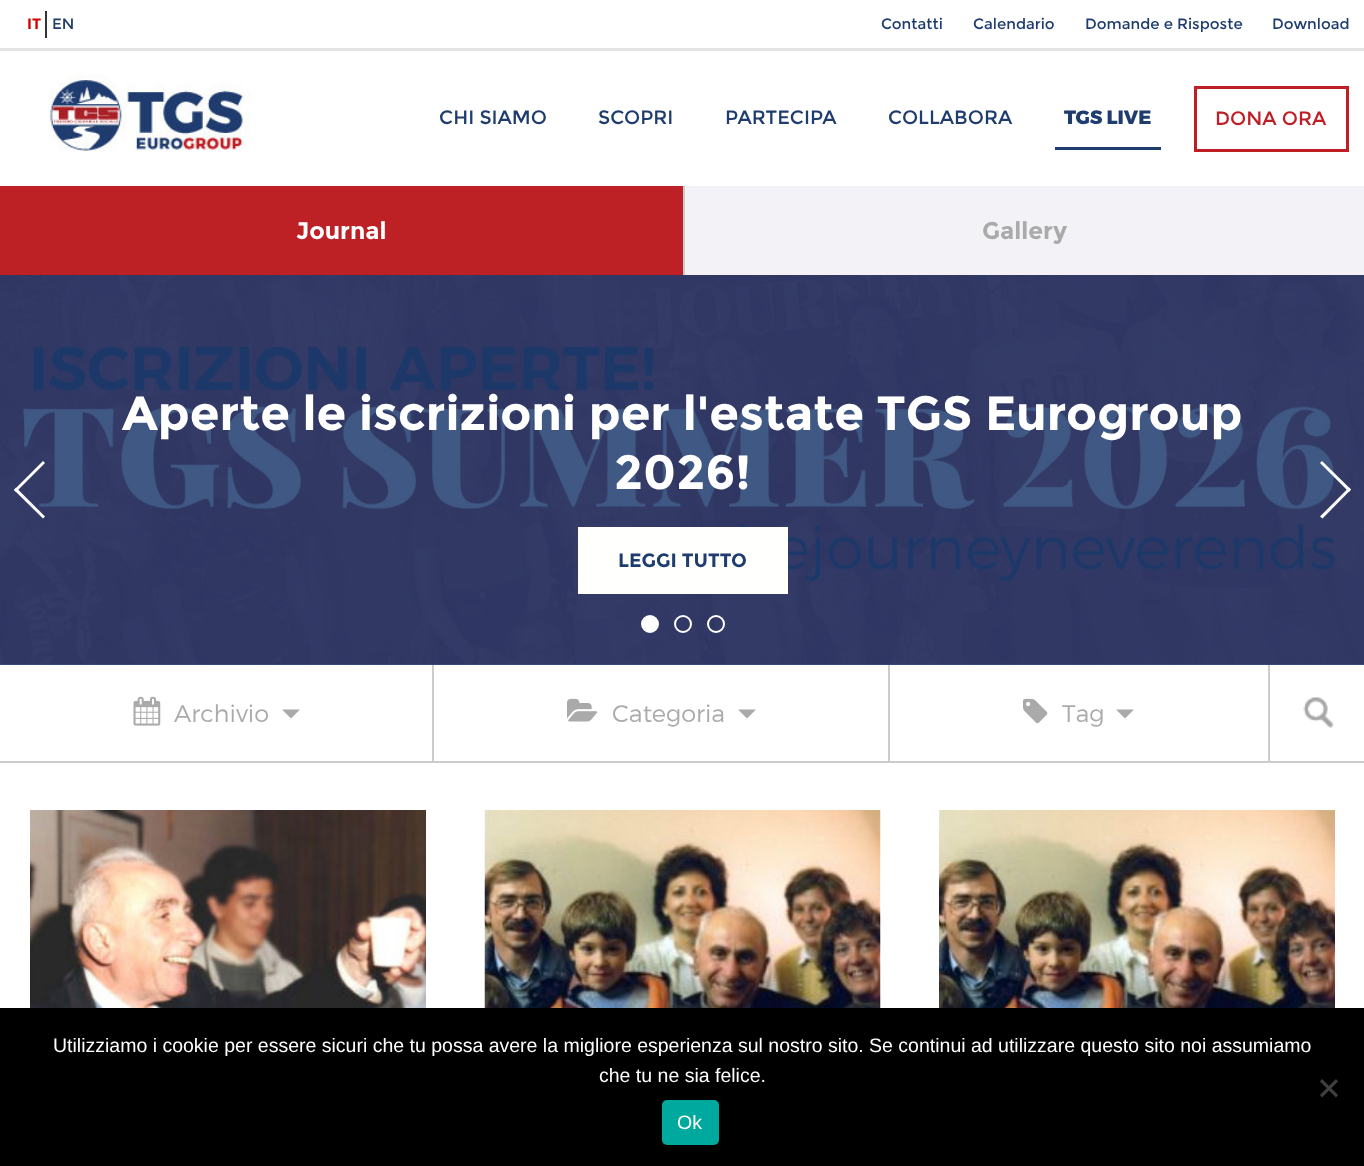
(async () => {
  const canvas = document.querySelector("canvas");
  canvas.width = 1364;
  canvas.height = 1166;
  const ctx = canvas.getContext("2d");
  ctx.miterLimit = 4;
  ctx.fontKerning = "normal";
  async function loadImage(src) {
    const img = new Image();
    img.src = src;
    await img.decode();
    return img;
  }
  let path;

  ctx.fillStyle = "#ffffff";
  ctx.fillRect(0, 0, 1364, 1166);
  for (const [x, y, w, h, color] of [
    [0, 664, 1364, 1, "#405884"],
    [0, 48, 1364, 3, "#e4e4e4"],
    [45, 11, 2, 27, "#333333"],
  ]) {
    ctx.fillStyle = color;
    ctx.fillRect(x, y, w, h);
  }
  ctx.drawImage(await loadImage("img/1.png"), 49, 74, 202, 78);
  ctx.fillStyle = "#1e3c6e";
  ctx.fillRect(1055, 147, 106, 3);
  ctx.strokeStyle = "#bf1e26";
  ctx.lineWidth = 3;
  ctx.strokeRect(1195.5, 87.5, 152, 63);
  for (const [x, y, w, h, color] of [
    [685, 186, 679, 89, "#f3f2f7"],
    [0, 186, 683, 89, "#bd2125"],
    [683, 186, 2, 89, "#cccccc"],
  ]) {
    ctx.fillStyle = color;
    ctx.fillRect(x, y, w, h);
  }
  ctx.drawImage(await loadImage("img/2.png"), 0, 275, 1364, 390);
  ctx.fillStyle = "#fffffd";
  ctx.fillRect(578, 527, 210, 67);
  ctx.fillStyle = "#ffffff";
  path = new Path2D("M14 490L43 461L45 463L16 492Z");
  ctx.fill(path);
  path = new Path2D("M14 490L16 487.5L45 516.5L43 518.5Z");
  ctx.fill(path);
  path = new Path2D("M1320 463L1322 461L1351 489.5L1349 492Z");
  ctx.fill(path);
  path = new Path2D("M1320 516.5L1349 487.5L1351 489.5L1322.5 518.5Z");
  ctx.fill(path);
  ctx.beginPath();
  ctx.arc(650, 624, 8, 0, Math.PI * 2);
  ctx.fill();
  ctx.strokeStyle = "#ffffff";
  ctx.lineWidth = 2;
  ctx.stroke();
  ctx.beginPath();
  ctx.arc(683, 624, 8, 0, Math.PI * 2);
  ctx.stroke();
  ctx.beginPath();
  ctx.arc(716, 624, 8, 0, Math.PI * 2);
  ctx.stroke();
  ctx.fillStyle = "#cccccc";
  ctx.fillRect(0, 761, 1364, 2);
  ctx.fillRect(432, 665, 2, 96);
  ctx.drawImage(await loadImage("img/3.png"), 133, 696, 28, 30);
  ctx.fillStyle = "#aaaaaa";
  path = new Path2D("M282 709.5H300L291 718.5Z");
  ctx.fill(path);
  ctx.fillStyle = "#cccccc";
  ctx.fillRect(888, 665, 2, 96);
  ctx.drawImage(await loadImage("img/4.png"), 567, 698, 31, 24);
  ctx.fillStyle = "#aaaaaa";
  path = new Path2D("M738 709.5H756L747 718.5Z");
  ctx.fill(path);
  ctx.fillStyle = "#cccccc";
  ctx.fillRect(1268, 665, 2, 96);
  ctx.drawImage(await loadImage("img/5.png"), 1023, 698, 25, 26);
  ctx.fillStyle = "#aaaaaa";
  path = new Path2D("M1116 709.5H1134L1125 718.5Z");
  ctx.fill(path);
  ctx.drawImage(await loadImage("img/6.png"), 1303, 697, 31, 31);
  ctx.drawImage(await loadImage("img/7.png"), 30, 810, 396, 198);
  ctx.drawImage(await loadImage("img/8.png"), 484, 810, 397, 198);
  ctx.drawImage(await loadImage("img/9.png"), 939, 810, 396, 198);
  ctx.fillStyle = "#000000";
  ctx.fillRect(0, 1008, 1364, 158);
  ctx.fillStyle = "#404040";
  path = new Path2D("M1336 1079L1338 1081.5L1322 1097.5L1320 1095Z");
  ctx.fill(path);
  path = new Path2D("M1320 1081.5L1322 1079L1338 1095L1336 1097.5Z");
  ctx.fill(path);
  ctx.fillStyle = "#00a99d";
  ctx.beginPath();
  ctx.roundRect(662, 1100, 57, 45, 5);
  ctx.fill();
  ctx.font = "bold 15px Montserrat";
  ctx.fillStyle = "#d00000";
  ctx.fillText("IT", 27, 29);
  ctx.font = "15px Montserrat";
  ctx.fillStyle = "#1e3c6e";
  for (const [text, x, y] of [
    ["EN", 52, 29],
    ["Contatti", 881, 29],
    ["Calendario", 973, 29],
    ["Domande e Risposte", 1085, 29],
    ["Download", 1272, 29],
  ]) {
    ctx.fillText(text, x, y);
  }
  ctx.font = "19.25px Montserrat";
  for (const [text, x, y] of [
    ["CHI SIAMO", 439, 124],
    ["SCOPRI", 598, 124],
    ["PARTECIPA", 725, 124],
    ["COLLABORA", 888, 124],
  ]) {
    ctx.fillText(text, x, y);
  }
  ctx.font = "800 19.25px Montserrat";
  ctx.fillText("TGS LIVE", 1064, 124);
  ctx.font = "19.25px Montserrat";
  ctx.fillStyle = "#bf1e26";
  ctx.fillText("DONA ORA", 1215, 125);
  ctx.font = "bold 24px Montserrat";
  ctx.fillStyle = "#ffffff";
  ctx.fillText("Journal", 296, 239);
  ctx.fillStyle = "#aaaaaa";
  ctx.fillText("Gallery", 982, 239);
  ctx.font = "bold 48px Montserrat";
  ctx.fillStyle = "#ffffff";
  ctx.fillText("Aperte le iscrizioni per l'estate TGS Eurogroup", 122, 430);
  ctx.fillText("2026!", 614, 489);
  ctx.font = "bold 19.25px Montserrat";
  ctx.fillStyle = "#1e3c6e";
  ctx.fillText("LEGGI TUTTO", 618, 567);
  ctx.font = "300 24px Montserrat";
  ctx.fillStyle = "#aaaaaa";
  for (const [text, x, y] of [
    ["Archivio", 174, 722],
    ["Categoria", 612, 722],
    ["Tag", 1062, 722],
  ]) {
    ctx.fillText(text, x, y);
  }
  ctx.font = "19.5px Liberation Sans";
  ctx.fillStyle = "#ffffff";
  for (const [text, x, y] of [
    ["Utilizziamo i cookie per essere sicuri che tu possa avere la migliore esperienza sul nostro sito. Se continui ad utilizzare questo sito noi assumiamo", 53, 1052],
    ["che tu ne sia felice.", 599, 1082],
    ["Ok", 677, 1129],
  ]) {
    ctx.fillText(text, x, y);
  }
})();
